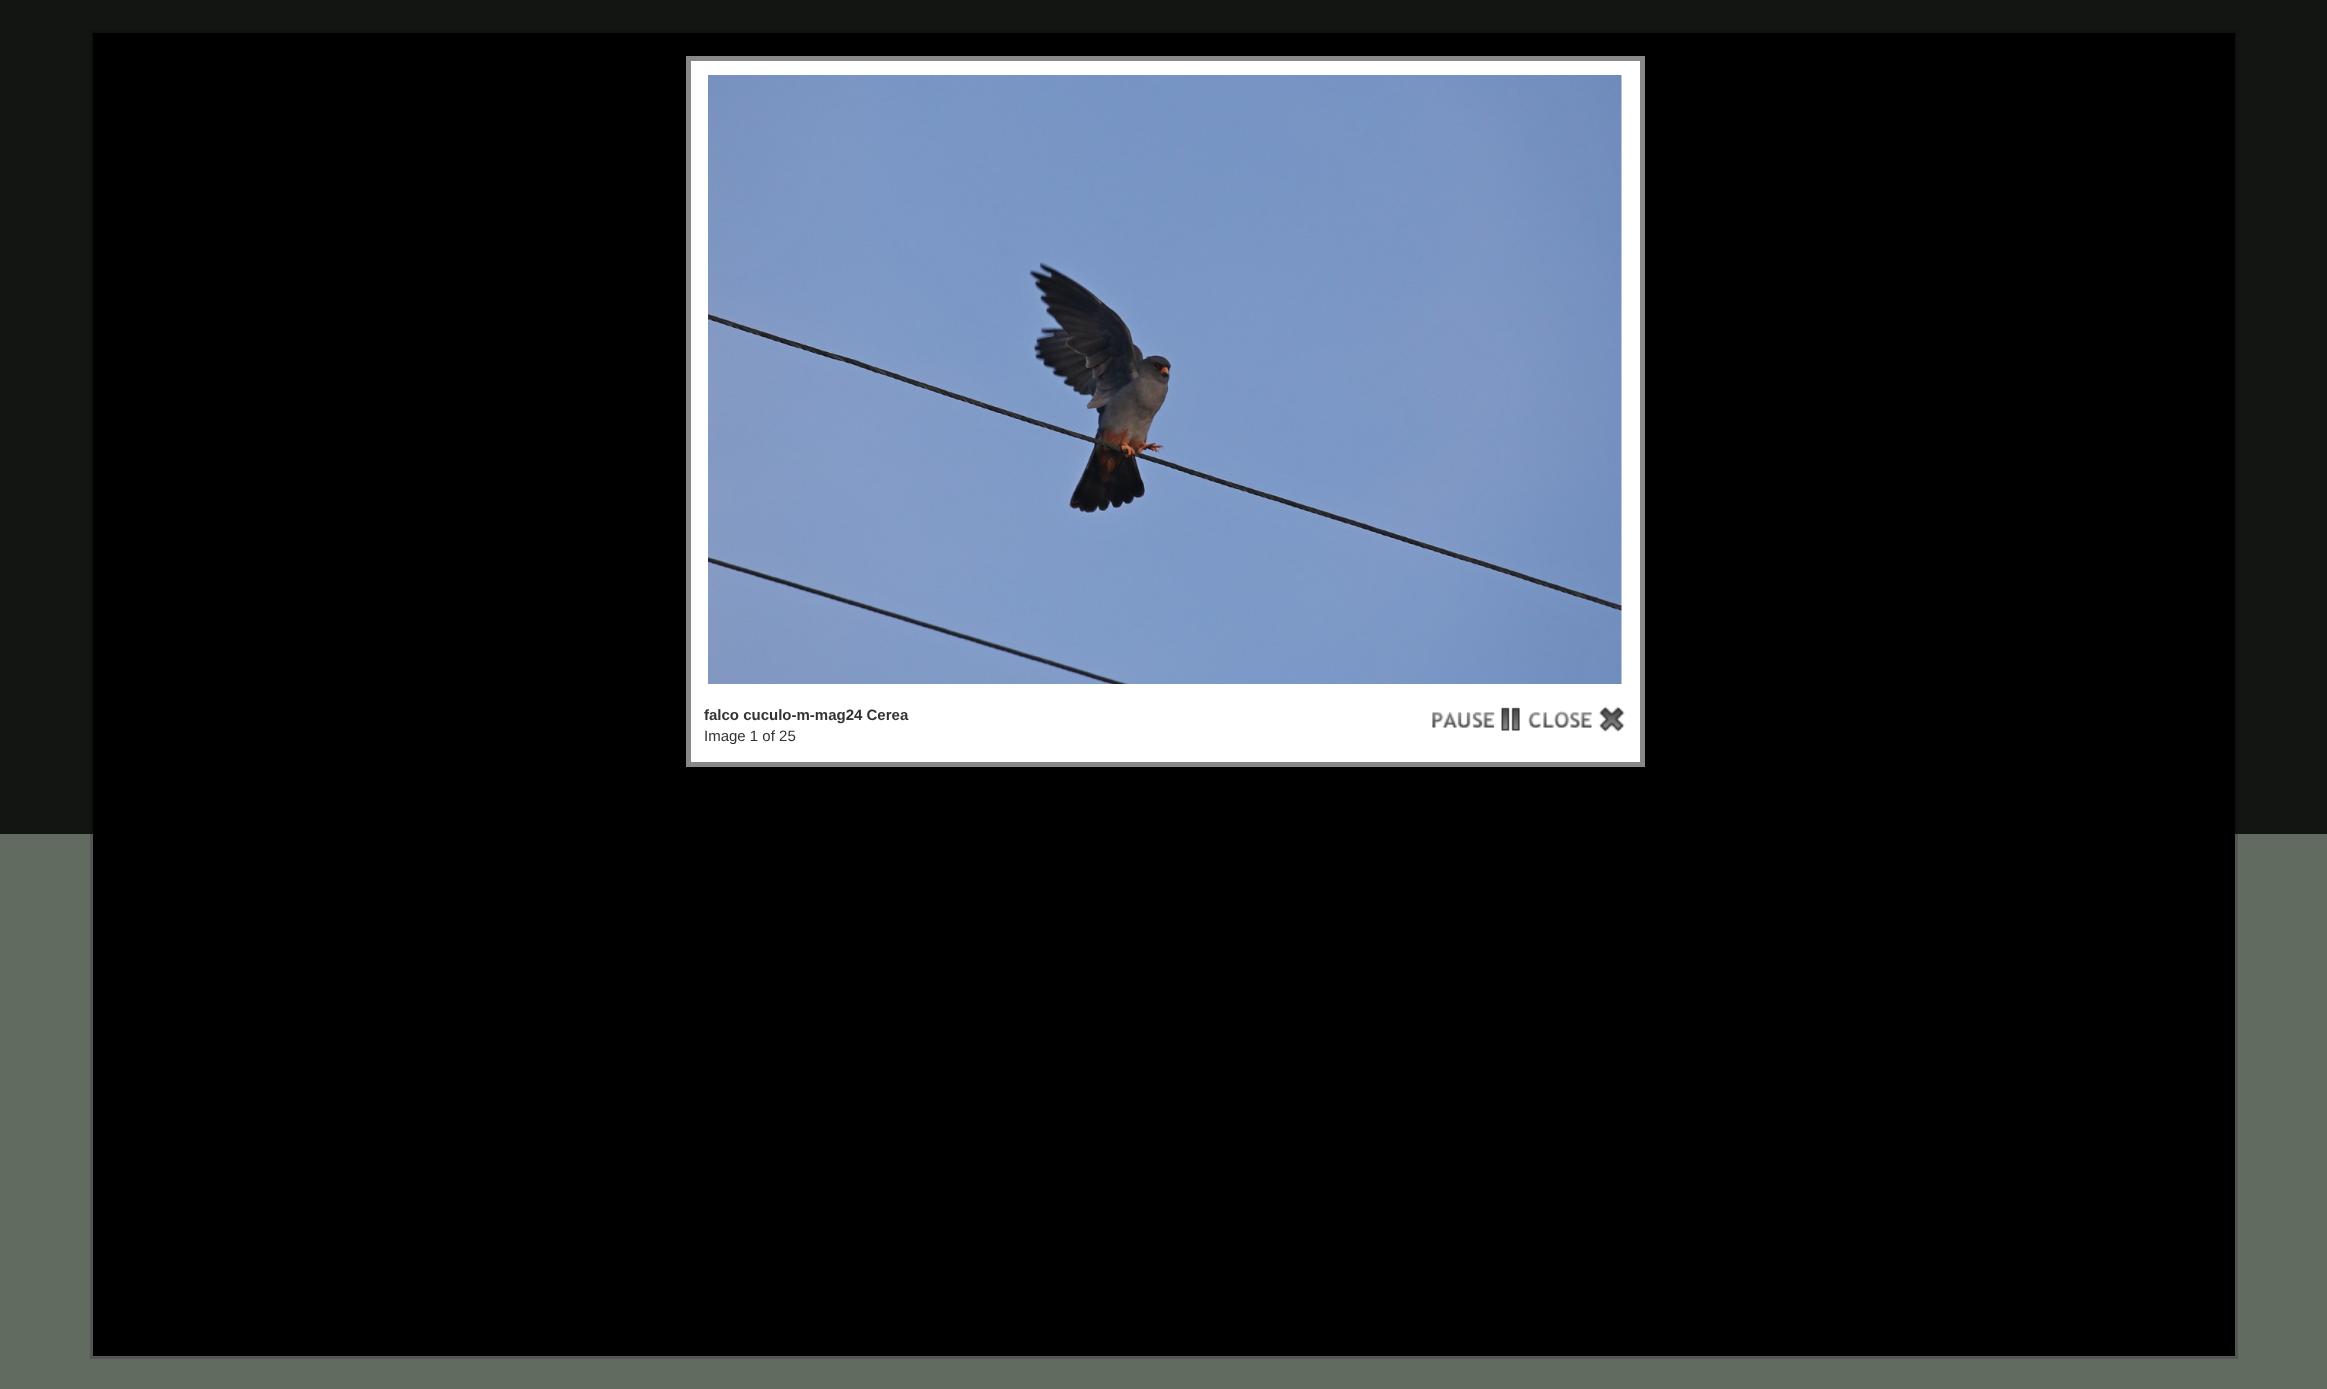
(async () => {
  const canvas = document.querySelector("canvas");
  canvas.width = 2327;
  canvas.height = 1389;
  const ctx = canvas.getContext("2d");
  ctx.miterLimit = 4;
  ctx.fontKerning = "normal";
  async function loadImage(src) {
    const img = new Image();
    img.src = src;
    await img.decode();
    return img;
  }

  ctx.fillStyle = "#626b60";
  ctx.fillRect(0, 0, 2327, 1389);
  ctx.fillStyle = "#000000";
  ctx.beginPath();
  ctx.rect(91.5, 31.5, 2145, 1326);
  ctx.fill();
  ctx.strokeStyle = "#555555";
  ctx.lineWidth = 3;
  ctx.stroke();
  for (const [x, y, w, h, color] of [
    [0, 0, 2327, 834, "rgba(0, 0, 0, 0.8)"],
    [686, 56, 958, 5, "#888888"],
    [1640, 56, 5, 649, "#888888"],
    [686, 56, 5, 649, "#888888"],
    [691, 61, 949, 701, "#ffffff"],
  ]) {
    ctx.fillStyle = color;
    ctx.fillRect(x, y, w, h);
  }
  ctx.drawImage(await loadImage("img/1.png"), 708, 75, 914, 609);
  for (const [x, y, w, h, color] of [
    [1640, 705, 5, 62, "#888888"],
    [686, 762, 958, 5, "#888888"],
    [686, 705, 5, 62, "#888888"],
  ]) {
    ctx.fillStyle = color;
    ctx.fillRect(x, y, w, h);
  }
  ctx.drawImage(await loadImage("img/3.png"), 1528, 706, 97, 27);
  ctx.drawImage(await loadImage("img/2.png"), 1432, 707, 97, 24);
  ctx.font = "bold 15px Liberation Sans";
  ctx.fillStyle = "#333333";
  ctx.fillText("falco cuculo-m-mag24 Cerea", 704, 720);
  ctx.font = "15px Liberation Sans";
  ctx.fillText("Image 1 of 25", 704, 741);
})();
